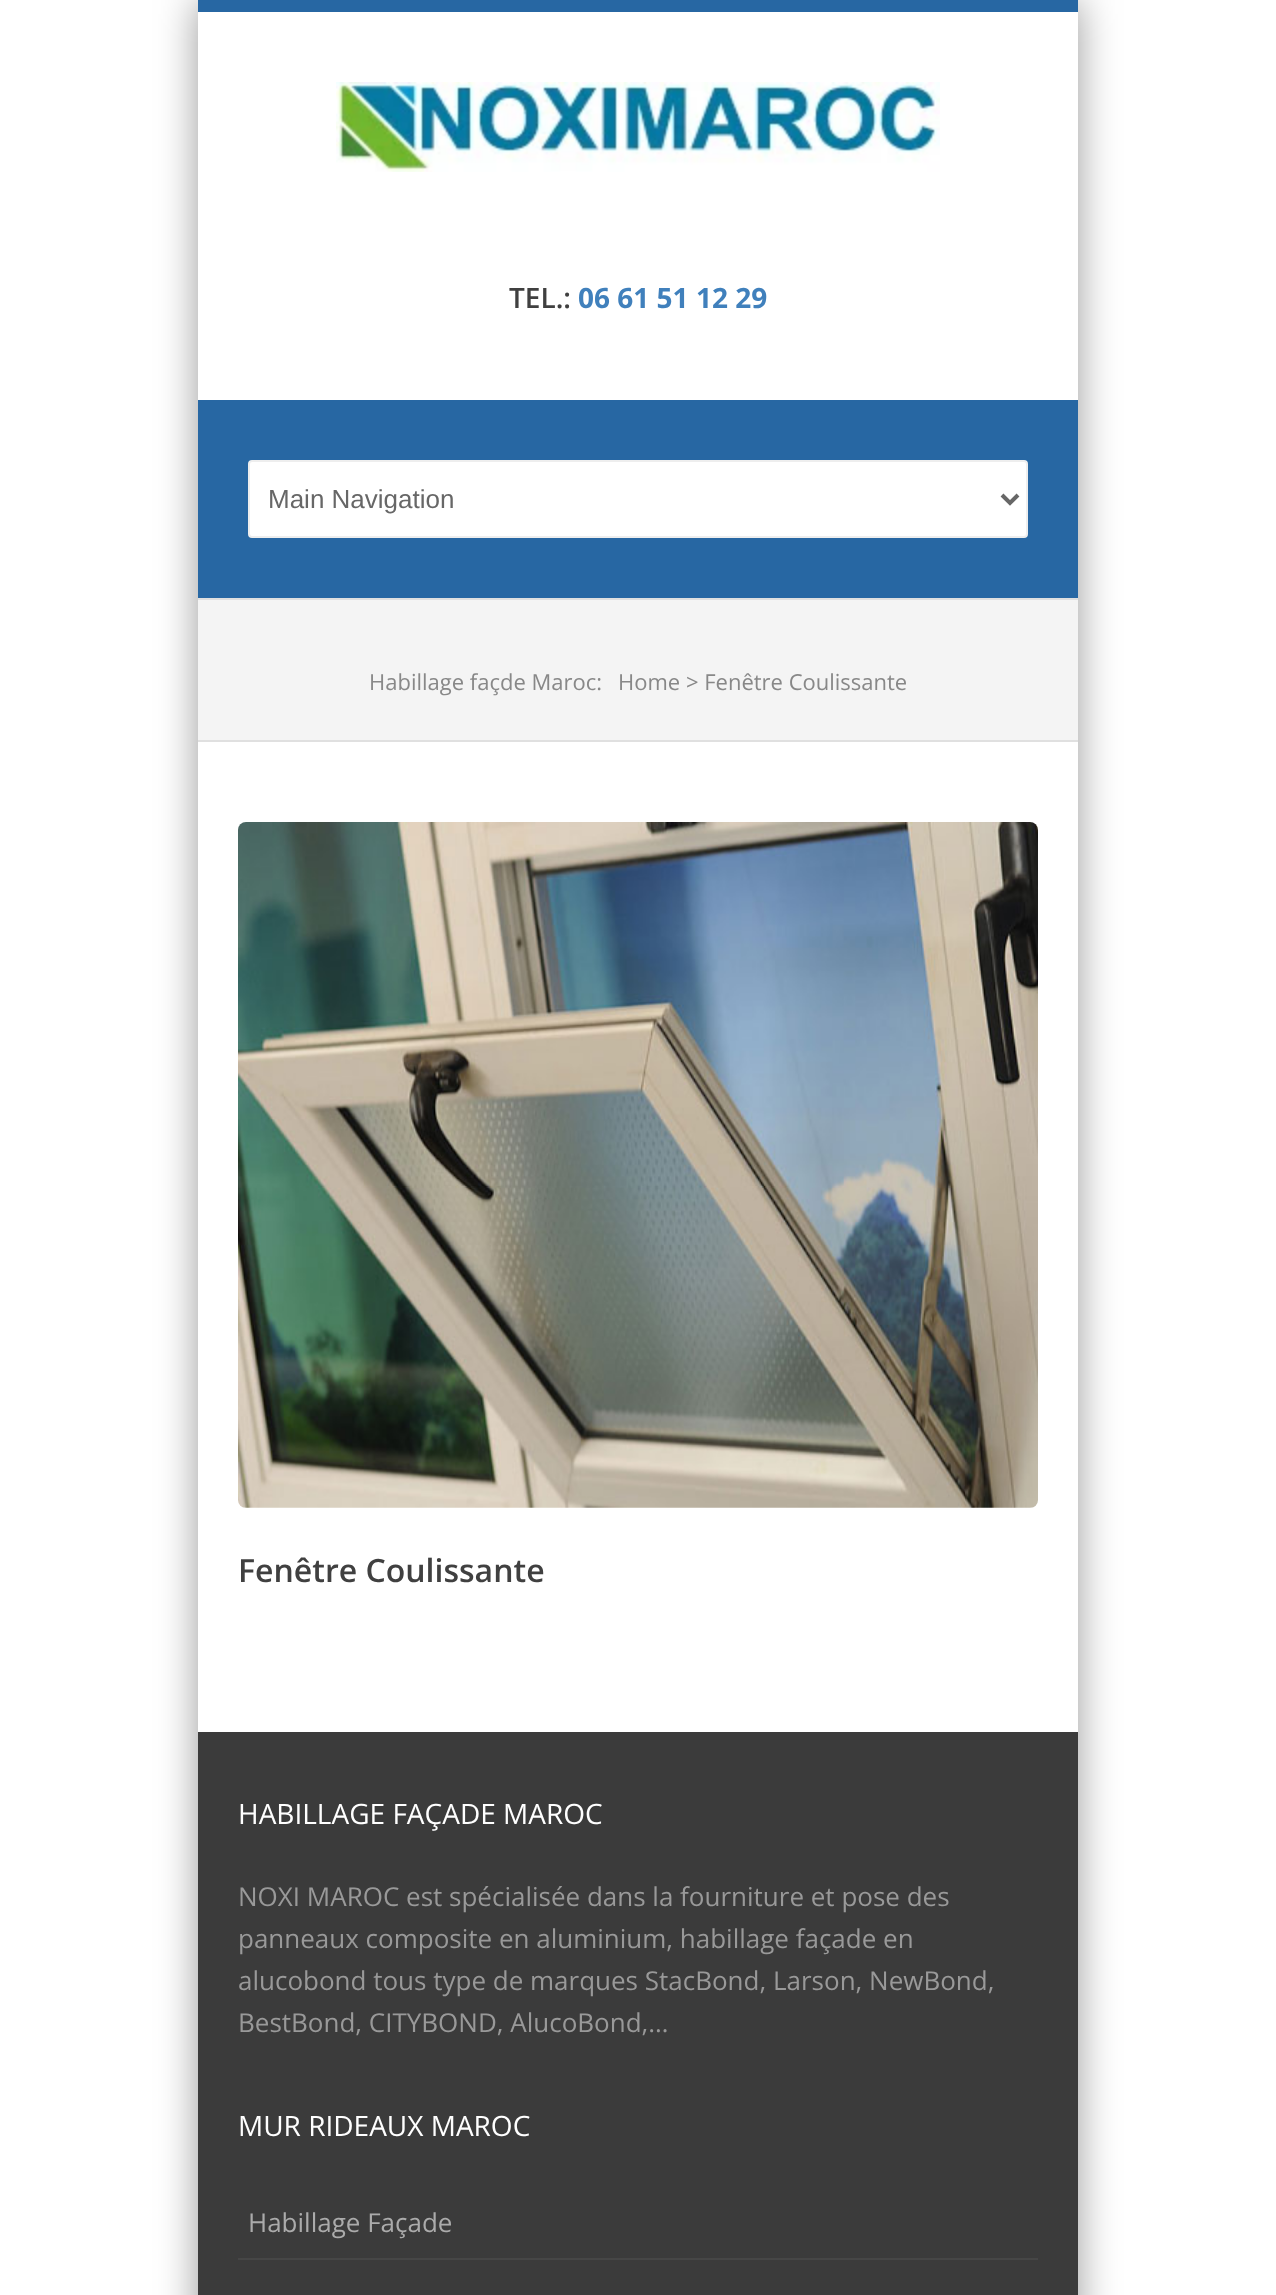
(async () => {
  const canvas = document.querySelector("canvas");
  canvas.width = 1276;
  canvas.height = 2295;
  const ctx = canvas.getContext("2d");
  ctx.miterLimit = 4;
  ctx.fontKerning = "normal";
  async function loadImage(src) {
    const img = new Image();
    img.src = src;
    await img.decode();
    return img;
  }
  let path;

  ctx.fillStyle = "#ffffff";
  ctx.fillRect(0, 0, 1276, 2295);
  ctx.save();
  path = new Path2D("M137 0H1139V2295H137ZM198 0H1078V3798H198Z");
  ctx.clip(path, "evenodd");
  ctx.fillStyle = "rgba(0, 0, 0, 0.4)";
  ctx.filter = "blur(20px)";
  ctx.beginPath();
  ctx.rect(198, 0, 880, 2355);
  ctx.fill();
  ctx.filter = "none";
  ctx.restore();
  ctx.fillStyle = "#2767a3";
  ctx.fillRect(198, 0, 880, 12);
  ctx.drawImage(await loadImage("img/1.png"), 336, 82, 604, 90);
  ctx.fillRect(198, 400, 880, 198);
  ctx.fillStyle = "#ffffff";
  ctx.beginPath();
  ctx.roundRect(249, 461, 778, 76, 3);
  ctx.fill();
  ctx.strokeStyle = "#eeeeee";
  ctx.lineWidth = 2;
  ctx.stroke();
  path = new Path2D("M1002 495L1010 503L1018 495");
  ctx.strokeStyle = "#676767";
  ctx.lineWidth = 4;
  ctx.stroke(path);
  for (const [x, y, w, h, color] of [
    [198, 600, 880, 140, "#f4f4f4"],
    [198, 598, 880, 2, "#e0e0e0"],
    [198, 740, 880, 2, "#e0e0e0"],
  ]) {
    ctx.fillStyle = color;
    ctx.fillRect(x, y, w, h);
  }
  ctx.drawImage(await loadImage("img/2.png"), 238, 822, 800, 686);
  ctx.fillStyle = "#3b3b3b";
  ctx.fillRect(198, 1732, 880, 563);
  ctx.fillStyle = "#464646";
  ctx.fillRect(238, 2258, 800, 2);
  ctx.font = "600 28px Open Sans";
  ctx.fillStyle = "#404040";
  ctx.fillText("TEL.:", 509, 308);
  ctx.font = "bold 28px Open Sans";
  ctx.fillStyle = "#4080bc";
  ctx.fillText("06 61 51 12 29", 578, 308);
  ctx.font = "26px Liberation Sans";
  ctx.fillStyle = "#676767";
  ctx.fillText("Main Navigation", 268, 508);
  ctx.font = "22px Open Sans";
  ctx.fillStyle = "#888888";
  ctx.fillText("Habillage façde Maroc:", 369, 690);
  ctx.fillText("Home > Fenêtre Coulissante", 618, 690);
  ctx.font = "600 32px Open Sans";
  ctx.fillStyle = "#404040";
  ctx.fillText("Fenêtre Coulissante", 238, 1582);
  ctx.font = "28px Open Sans";
  ctx.fillStyle = "#ffffff";
  ctx.fillText("HABILLAGE FAÇADE MAROC", 238, 1824);
  ctx.font = "26px Open Sans";
  ctx.fillStyle = "#999999";
  for (const [text, x, y] of [
    ["NOXI MAROC est spécialisée dans la fourniture et pose des", 238, 1906],
    ["panneaux composite en aluminium, habillage façade en", 238, 1948],
    ["alucobond tous type de marques StacBond, Larson, NewBond,", 238, 1990],
    ["BestBond, CITYBOND, AlucoBond,…", 238, 2032],
  ]) {
    ctx.fillText(text, x, y);
  }
  ctx.font = "28px Open Sans";
  ctx.fillStyle = "#ffffff";
  ctx.fillText("MUR RIDEAUX MAROC", 238, 2136);
  ctx.font = "26px Open Sans";
  ctx.fillStyle = "#ababab";
  ctx.fillText("Habillage Façade", 248, 2232);
})();
